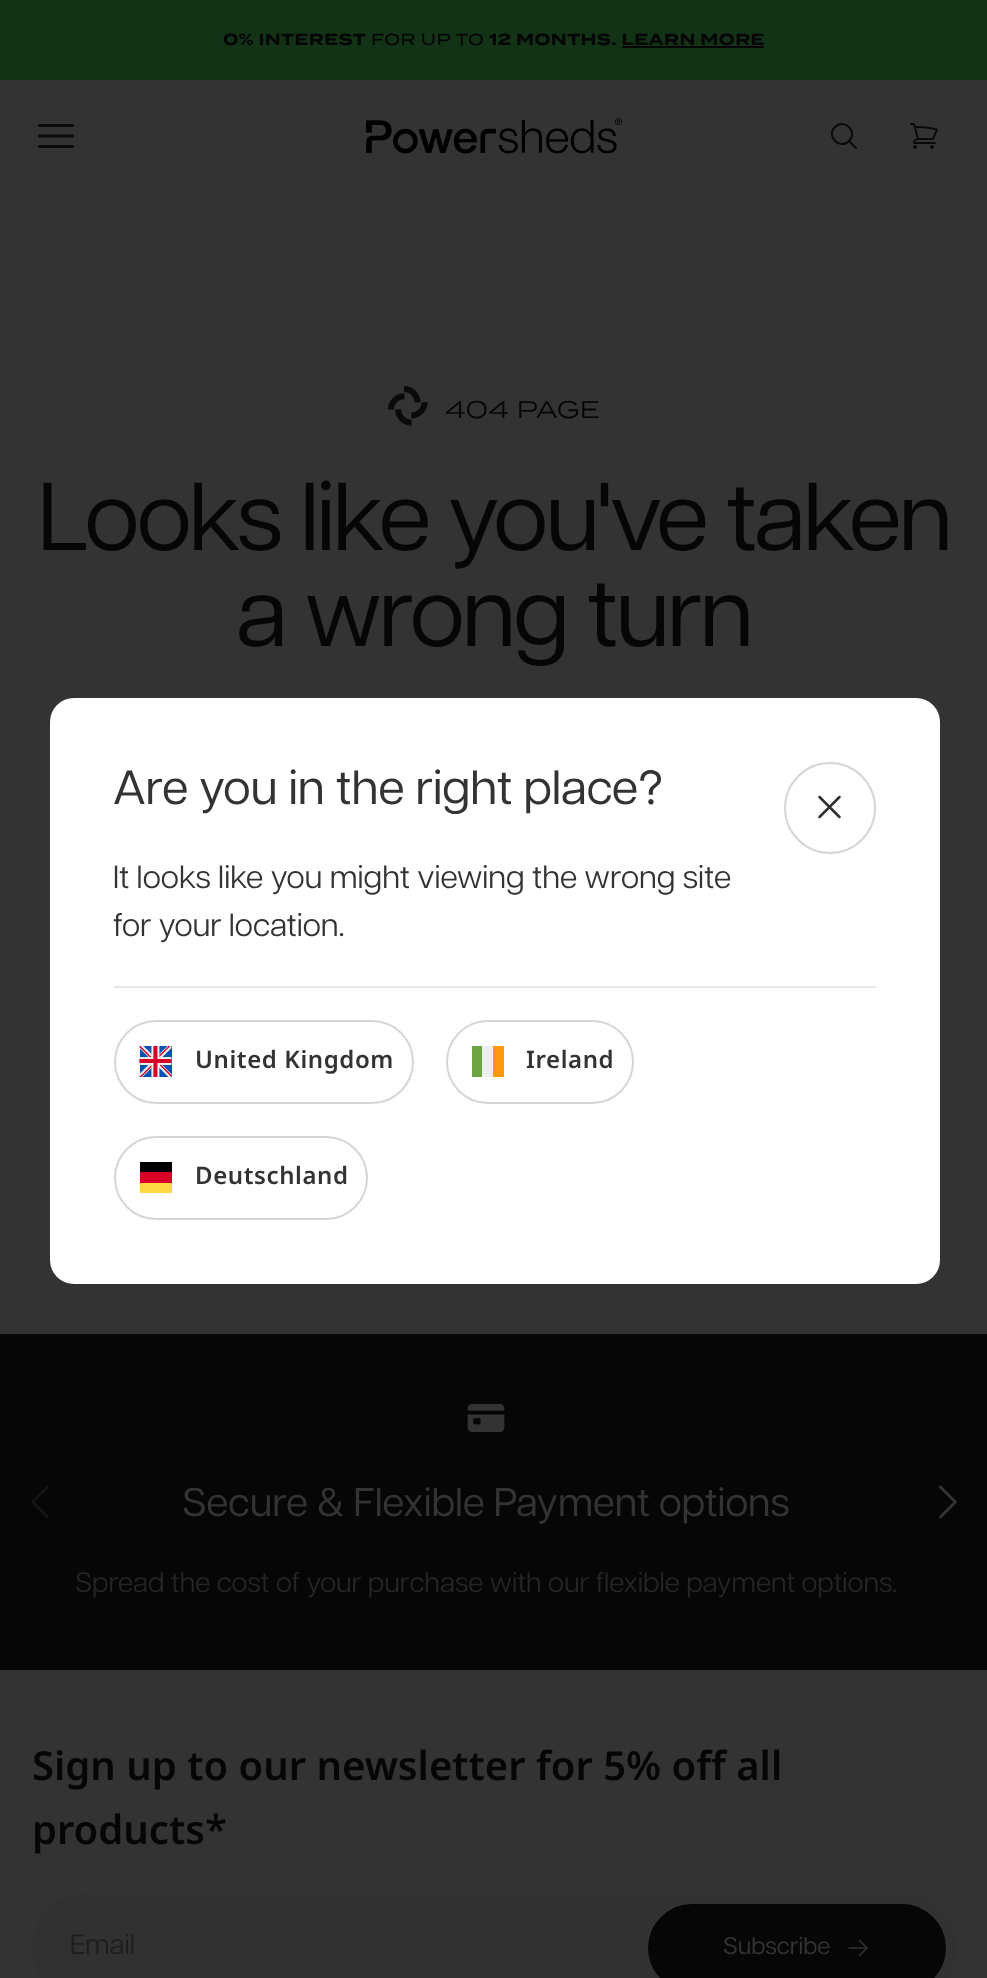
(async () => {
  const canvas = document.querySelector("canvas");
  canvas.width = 987;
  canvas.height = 1978;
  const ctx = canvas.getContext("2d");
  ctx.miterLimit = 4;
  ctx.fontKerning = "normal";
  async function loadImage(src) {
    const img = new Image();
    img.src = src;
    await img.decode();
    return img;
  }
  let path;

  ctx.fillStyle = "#333333";
  ctx.fillRect(0, 0, 987, 1978);
  ctx.fillStyle = "#133317";
  ctx.fillRect(0, 0, 987, 80);
  ctx.fillStyle = "#060606";
  ctx.fillRect(622, 46, 142, 2);
  path = new Path2D("M39.5 125.5H72.5M39.5 136H72.5M39.5 146.5H72.5");
  ctx.strokeStyle = "#0a0a0a";
  ctx.lineWidth = 3;
  ctx.lineCap = "round";
  ctx.lineJoin = "round";
  ctx.stroke(path);
  ctx.drawImage(await loadImage("img/1.png"), 366, 118, 256, 36);
  path = new Path2D("M856 148L849 141M849 141C858.5 132 844 117.5 835 127C825.5 136 840 150.5 849 141Z");
  ctx.lineWidth = 2;
  ctx.stroke(path);
  ctx.drawImage(await loadImage("img/2.png"), 910, 123, 28, 26);
  ctx.drawImage(await loadImage("img/3.png"), 388, 386, 40, 40);
  ctx.fillStyle = "#ffffff";
  ctx.beginPath();
  ctx.roundRect(50, 698, 890, 586, 24);
  ctx.fill();
  ctx.fillStyle = "#e5e7eb";
  ctx.fillRect(114, 986, 762, 2);
  ctx.beginPath();
  ctx.arc(830, 808, 45, 0, Math.PI * 2);
  ctx.strokeStyle = "#d6d6d6";
  ctx.stroke();
  path = new Path2D("M819.5 817L839.5 797M819.5 797L839.5 817");
  ctx.strokeStyle = "#303030";
  ctx.lineWidth = 2.5;
  ctx.stroke(path);
  ctx.beginPath();
  ctx.roundRect(115, 1021, 298, 82, 41);
  ctx.strokeStyle = "#d6d6d6";
  ctx.lineWidth = 2;
  ctx.lineJoin = "miter";
  ctx.stroke();
  ctx.drawImage(await loadImage("img/4.png"), 139, 1046, 33, 31);
  ctx.beginPath();
  ctx.roundRect(447, 1021, 186, 82, 41);
  ctx.stroke();
  for (const [x, y, w, h, color] of [
    [482, 1046, 11, 31, "#eeeeee"],
    [493, 1046, 11, 31, "#ff9811"],
    [472, 1046, 10, 31, "#6da544"],
  ]) {
    ctx.fillStyle = color;
    ctx.fillRect(x, y, w, h);
  }
  ctx.beginPath();
  ctx.roundRect(115, 1137, 252, 82, 41);
  ctx.stroke();
  for (const [x, y, w, h, color] of [
    [140, 1172, 32, 11, "#d80027"],
    [140, 1183, 32, 10, "#ffda44"],
    [140, 1162, 32, 10, "#000000"],
    [0, 1334, 987, 336, "#060606"],
  ]) {
    ctx.fillStyle = color;
    ctx.fillRect(x, y, w, h);
  }
  path = new Path2D("M47.5 1517L32.5 1502L47.5 1487");
  ctx.strokeStyle = "#141414";
  ctx.lineWidth = 3;
  ctx.lineJoin = "round";
  ctx.stroke(path);
  ctx.drawImage(await loadImage("img/5.png"), 467, 1403, 38, 30);
  path = new Path2D("M940.5 1487L955.5 1502L940.5 1517");
  ctx.strokeStyle = "#333333";
  ctx.stroke(path);
  ctx.fillStyle = "#303130";
  ctx.beginPath();
  ctx.roundRect(32, 1894, 924, 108, 54);
  ctx.fill();
  ctx.fillStyle = "#060606";
  ctx.beginPath();
  ctx.roundRect(647, 1903, 300, 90, 45);
  ctx.fill();
  ctx.lineWidth = 2;
  ctx.lineJoin = "miter";
  ctx.stroke();
  ctx.drawImage(await loadImage("img/6.png"), 848, 1939, 20, 18);
  ctx.letterSpacing = "0.4px";
  ctx.font = "bold 16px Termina";
  ctx.fillText("0% INTEREST", 223, 45);
  ctx.font = "500 16px Termina";
  ctx.fillText("FOR UP TO", 371, 45);
  ctx.font = "bold 16px Termina";
  ctx.fillText("12 MONTHS. LEARN MORE", 489, 45);
  ctx.letterSpacing = "0px";
  ctx.font = "24px Termina";
  ctx.fillText("404 PAGE", 445, 418);
  ctx.letterSpacing = "-2.4px";
  ctx.font = "96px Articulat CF";
  ctx.fillText("Looks like you've taken", 38, 550);
  ctx.fillText("a wrong turn", 236, 646);
  ctx.letterSpacing = "0px";
  ctx.font = "48px Articulat CF";
  ctx.fillStyle = "#333333";
  ctx.fillText("Are you in the right place?", 113, 804);
  ctx.font = "32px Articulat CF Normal";
  ctx.fillText("It looks like you might viewing the wrong site", 113, 888);
  ctx.fillText("for your location.", 113, 936);
  ctx.letterSpacing = "0.6px";
  ctx.font = "600 24px Noto Sans";
  for (const [text, x, y] of [
    ["United Kingdom", 195, 1068],
    ["Ireland", 526, 1068],
    ["Deutschland", 195, 1184],
  ]) {
    ctx.fillText(text, x, y);
  }
  ctx.letterSpacing = "0px";
  ctx.font = "40px Articulat CF";
  ctx.fillText("Secure & Flexible Payment options", 182, 1516);
  ctx.font = "28px Articulat CF Normal";
  ctx.fillStyle = "#262626";
  ctx.fillText("Spread the cost of your purchase with our flexible payment options.", 75, 1592);
  ctx.font = "600 40px Noto Sans";
  ctx.fillStyle = "#060606";
  ctx.fillText("Sign up to our newsletter for 5% off all", 32, 1780);
  ctx.fillText("products*", 32, 1844);
  ctx.font = "28px Articulat CF Normal";
  ctx.fillStyle = "#1d1d1d";
  ctx.fillText("Email", 70, 1954);
  ctx.font = "24px Articulat CF";
  ctx.fillStyle = "#333333";
  ctx.fillText("Subscribe", 723, 1954);
})();
